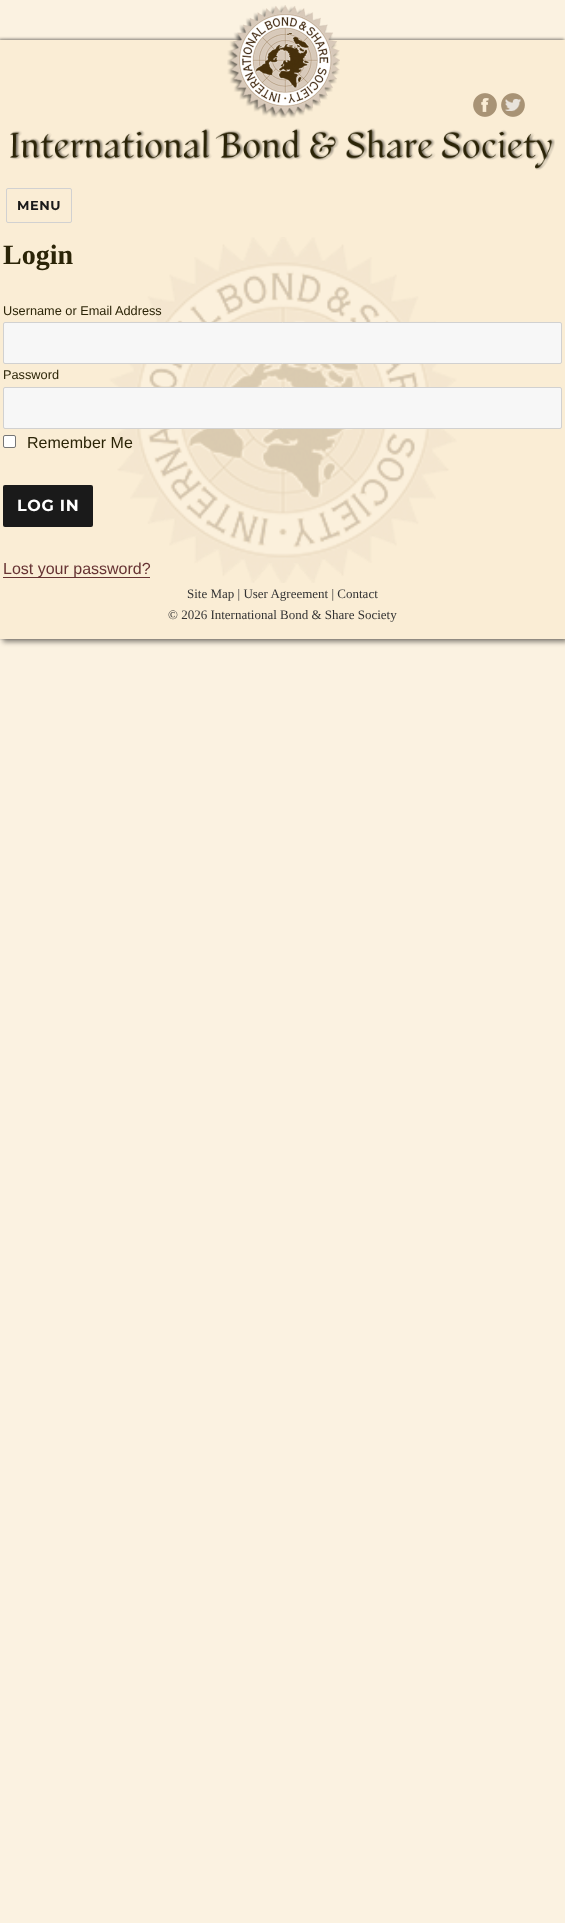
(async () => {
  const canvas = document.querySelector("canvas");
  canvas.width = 565;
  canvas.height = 1923;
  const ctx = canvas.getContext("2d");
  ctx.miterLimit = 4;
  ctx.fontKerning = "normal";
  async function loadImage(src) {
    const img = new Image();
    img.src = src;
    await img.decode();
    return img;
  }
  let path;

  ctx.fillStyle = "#fbf2e1";
  ctx.fillRect(0, 0, 565, 1923);
  ctx.fillStyle = "#faedd5";
  ctx.fillRect(0, 40, 565, 599);
  ctx.save();
  path = new Path2D("M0 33H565V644H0ZM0 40H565V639H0Z");
  ctx.clip(path, "evenodd");
  ctx.fillStyle = "rgba(0, 0, 0, 0.45)";
  ctx.filter = "blur(1.5px)";
  ctx.beginPath();
  ctx.rect(-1, 39, 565, 599);
  ctx.fill();
  ctx.filter = "none";
  ctx.restore();
  ctx.save();
  path = new Path2D("M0 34H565V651H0ZM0 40H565V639H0Z");
  ctx.clip(path, "evenodd");
  ctx.fillStyle = "rgba(0, 0, 0, 0.45)";
  ctx.filter = "blur(2.5px)";
  ctx.beginPath();
  ctx.rect(3, 43, 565, 599);
  ctx.fill();
  ctx.filter = "none";
  ctx.restore();
  ctx.drawImage(await loadImage("img/1.png"), 227, 5, 113, 113);
  ctx.drawImage(await loadImage("img/2.png"), 473, 93, 24, 24);
  ctx.drawImage(await loadImage("img/3.png"), 501, 93, 24, 24);
  ctx.drawImage(await loadImage("img/4.png"), 10, 128, 545, 42);
  ctx.beginPath();
  ctx.roundRect(6.5, 188.5, 65, 34, 1.5);
  ctx.strokeStyle = "#d1d1d1";
  ctx.stroke();
  ctx.drawImage(await loadImage("img/5.png"), 109, 237, 348, 346);
  ctx.fillStyle = "#f7f7f7";
  ctx.beginPath();
  ctx.roundRect(3.5, 322.5, 558, 41, 1.5);
  ctx.fill();
  ctx.stroke();
  ctx.beginPath();
  ctx.roundRect(3.5, 387.5, 558, 41, 1.5);
  ctx.fill();
  ctx.stroke();
  ctx.fillStyle = "#ffffff";
  ctx.beginPath();
  ctx.roundRect(3.5, 435.5, 12, 12, 1.5);
  ctx.fill();
  ctx.strokeStyle = "#767676";
  ctx.stroke();
  ctx.fillStyle = "#1a1a1a";
  ctx.beginPath();
  ctx.roundRect(3, 485, 90, 42, 2);
  ctx.fill();
  ctx.fillStyle = "#663333";
  ctx.fillRect(3, 577, 147, 1);
  ctx.letterSpacing = "0.5px";
  ctx.font = "bold 13px Montserrat";
  ctx.fillStyle = "#1a1a1a";
  ctx.fillText("MENU", 17, 210);
  ctx.letterSpacing = "0px";
  ctx.font = "bold 28px Liberation Serif";
  ctx.fillStyle = "#2b2407";
  ctx.fillText("Login", 3, 264);
  ctx.font = "12.75px Liberation Sans";
  ctx.fillText("Username or Email Address", 3, 315);
  ctx.fillText("Password", 3, 379);
  ctx.font = "16px Liberation Sans";
  ctx.fillText("Remember Me", 27, 448);
  ctx.letterSpacing = "0.75px";
  ctx.font = "bold 16px Montserrat";
  ctx.fillStyle = "#ffffff";
  ctx.fillText("LOG IN", 17, 511);
  ctx.letterSpacing = "0px";
  ctx.font = "16px Liberation Sans";
  ctx.fillStyle = "#663333";
  ctx.fillText("Lost your password?", 3, 574);
  ctx.font = "13px Liberation Serif";
  ctx.fillStyle = "#333333";
  ctx.fillText("Site Map | User Agreement | Contact", 187, 598);
  ctx.fillText("© 2026 International Bond & Share Society", 168, 619);
})();
